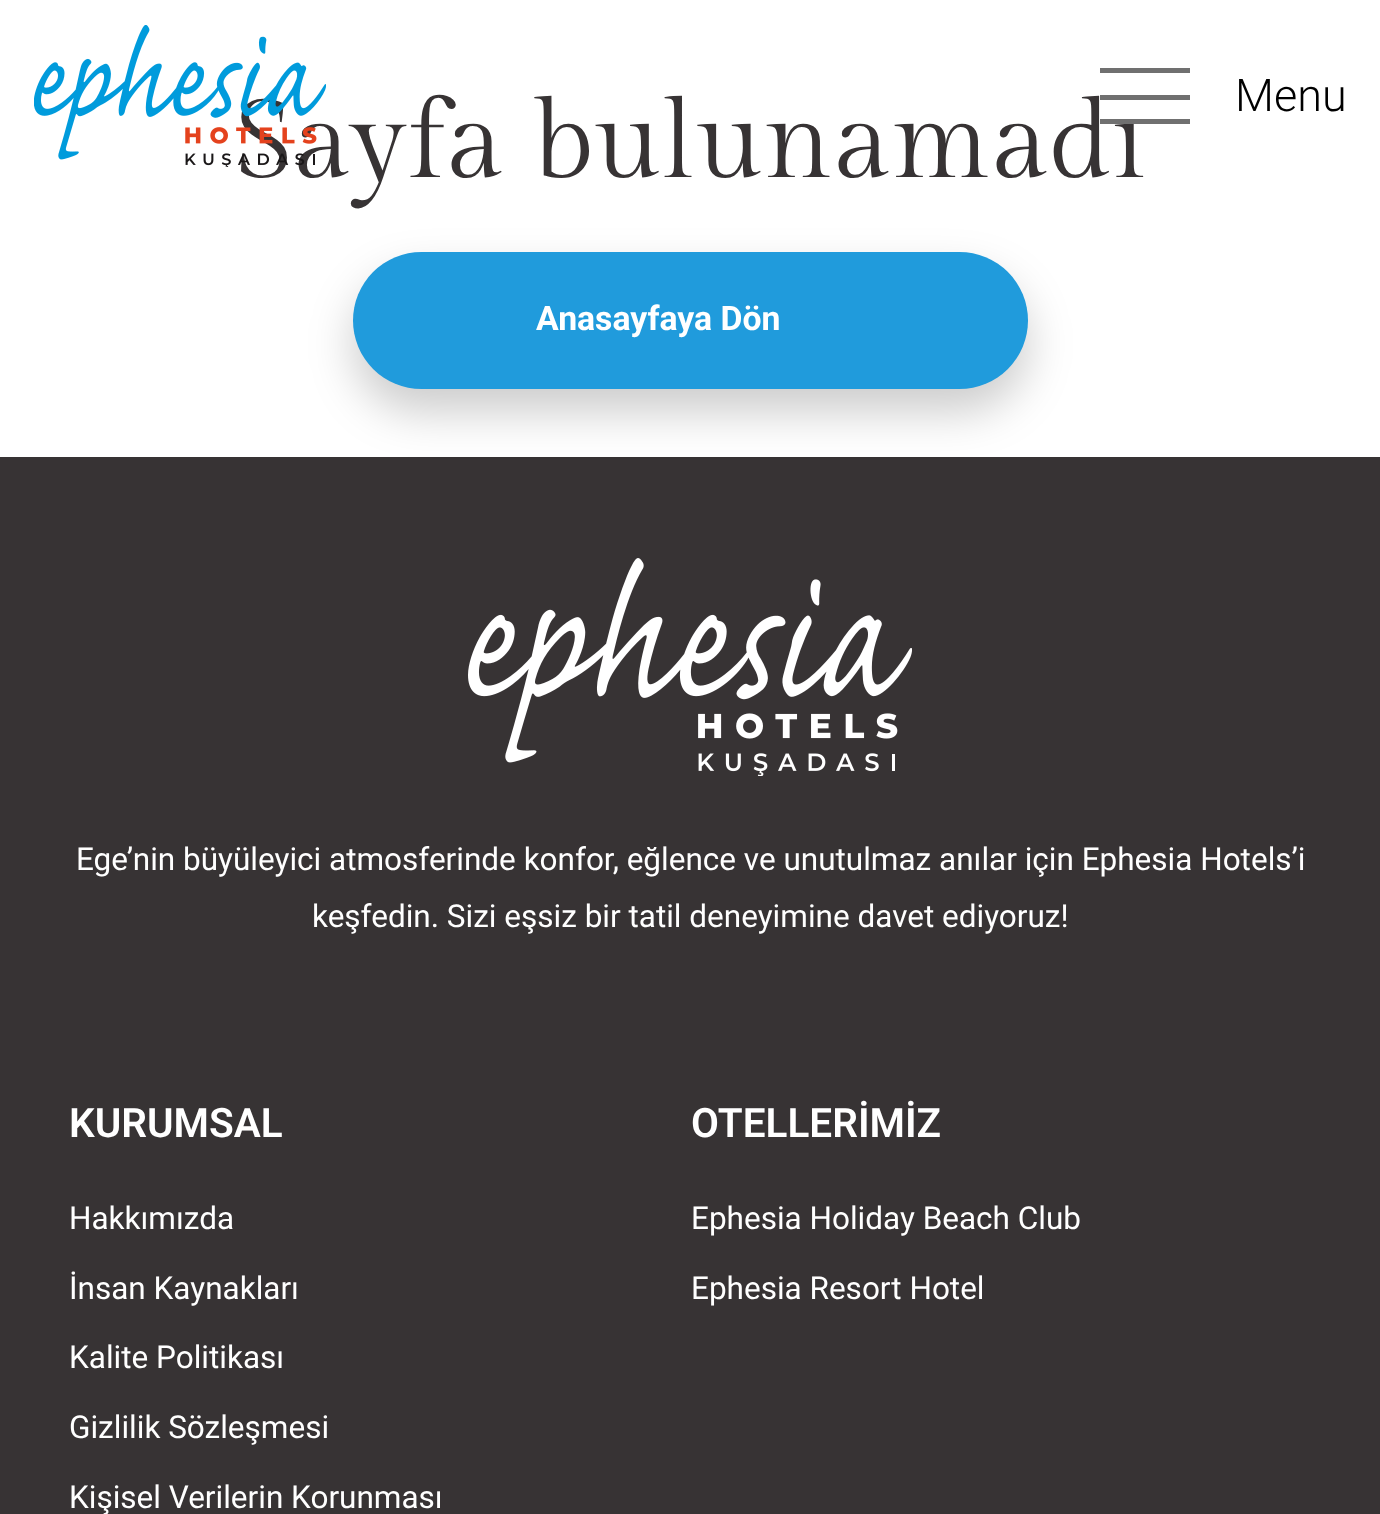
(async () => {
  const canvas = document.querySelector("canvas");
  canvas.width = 1380;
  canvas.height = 1514;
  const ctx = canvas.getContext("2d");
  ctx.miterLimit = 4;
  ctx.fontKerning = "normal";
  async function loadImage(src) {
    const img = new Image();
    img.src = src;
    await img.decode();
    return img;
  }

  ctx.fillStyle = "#ffffff";
  ctx.fillRect(0, 0, 1380, 1514);
  ctx.fillStyle = "#373334";
  ctx.fillRect(0, 457, 1380, 1057);
  ctx.fillStyle = "rgba(0, 0, 0, 0.2)";
  ctx.filter = "blur(22.5px)";
  ctx.beginPath();
  ctx.roundRect(353, 275, 675, 137, 68.5);
  ctx.fill();
  ctx.filter = "none";
  ctx.fillStyle = "#209bdc";
  ctx.beginPath();
  ctx.roundRect(353, 252, 675, 137, 68.5);
  ctx.fill();
  ctx.fillStyle = "#707070";
  ctx.fillRect(1100, 68, 90, 5);
  ctx.drawImage(await loadImage("img/2.png"), 468, 558, 444, 218);
  ctx.font = "110.5px Gilda Display";
  ctx.fillStyle = "#373334";
  ctx.fillText("Sayfa bulunamadı", 235, 177);
  ctx.font = "bold 33.75px Roboto";
  ctx.fillStyle = "#ffffff";
  ctx.fillText("Anasayfaya Dön", 536, 330);
  ctx.drawImage(await loadImage("img/1.png"), 34, 25, 292, 142);
  ctx.fillStyle = "#707070";
  ctx.fillRect(1100, 95, 90, 5);
  ctx.fillRect(1100, 119, 90, 5);
  ctx.font = "300 45px Roboto";
  ctx.fillStyle = "#000000";
  ctx.fillText("Menu", 1235, 111);
  ctx.font = "31.5px Roboto";
  ctx.fillStyle = "#ffffff";
  ctx.fillText("Ege’nin büyüleyici atmosferinde konfor, eğlence ve unutulmaz anılar için Ephesia Hotels’i", 76, 870);
  ctx.fillText("keşfedin. Sizi eşsiz bir tatil deneyimine davet ediyoruz!", 312, 927);
  ctx.font = "600 40.5px Roboto";
  ctx.fillText("KURUMSAL", 69, 1137);
  ctx.font = "31.5px Roboto";
  for (const [text, x, y] of [
    ["Hakkımızda", 69, 1229],
    ["İnsan Kaynakları", 69, 1299],
    ["Kalite Politikası", 69, 1368],
    ["Gizlilik Sözleşmesi", 69, 1438],
    ["Kişisel Verilerin Korunması", 69, 1508],
  ]) {
    ctx.fillText(text, x, y);
  }
  ctx.font = "600 40.5px Roboto";
  ctx.fillText("OTELLERİMİZ", 691, 1137);
  ctx.font = "31.5px Roboto";
  ctx.fillText("Ephesia Holiday Beach Club", 691, 1229);
  ctx.fillText("Ephesia Resort Hotel", 691, 1299);
})();
